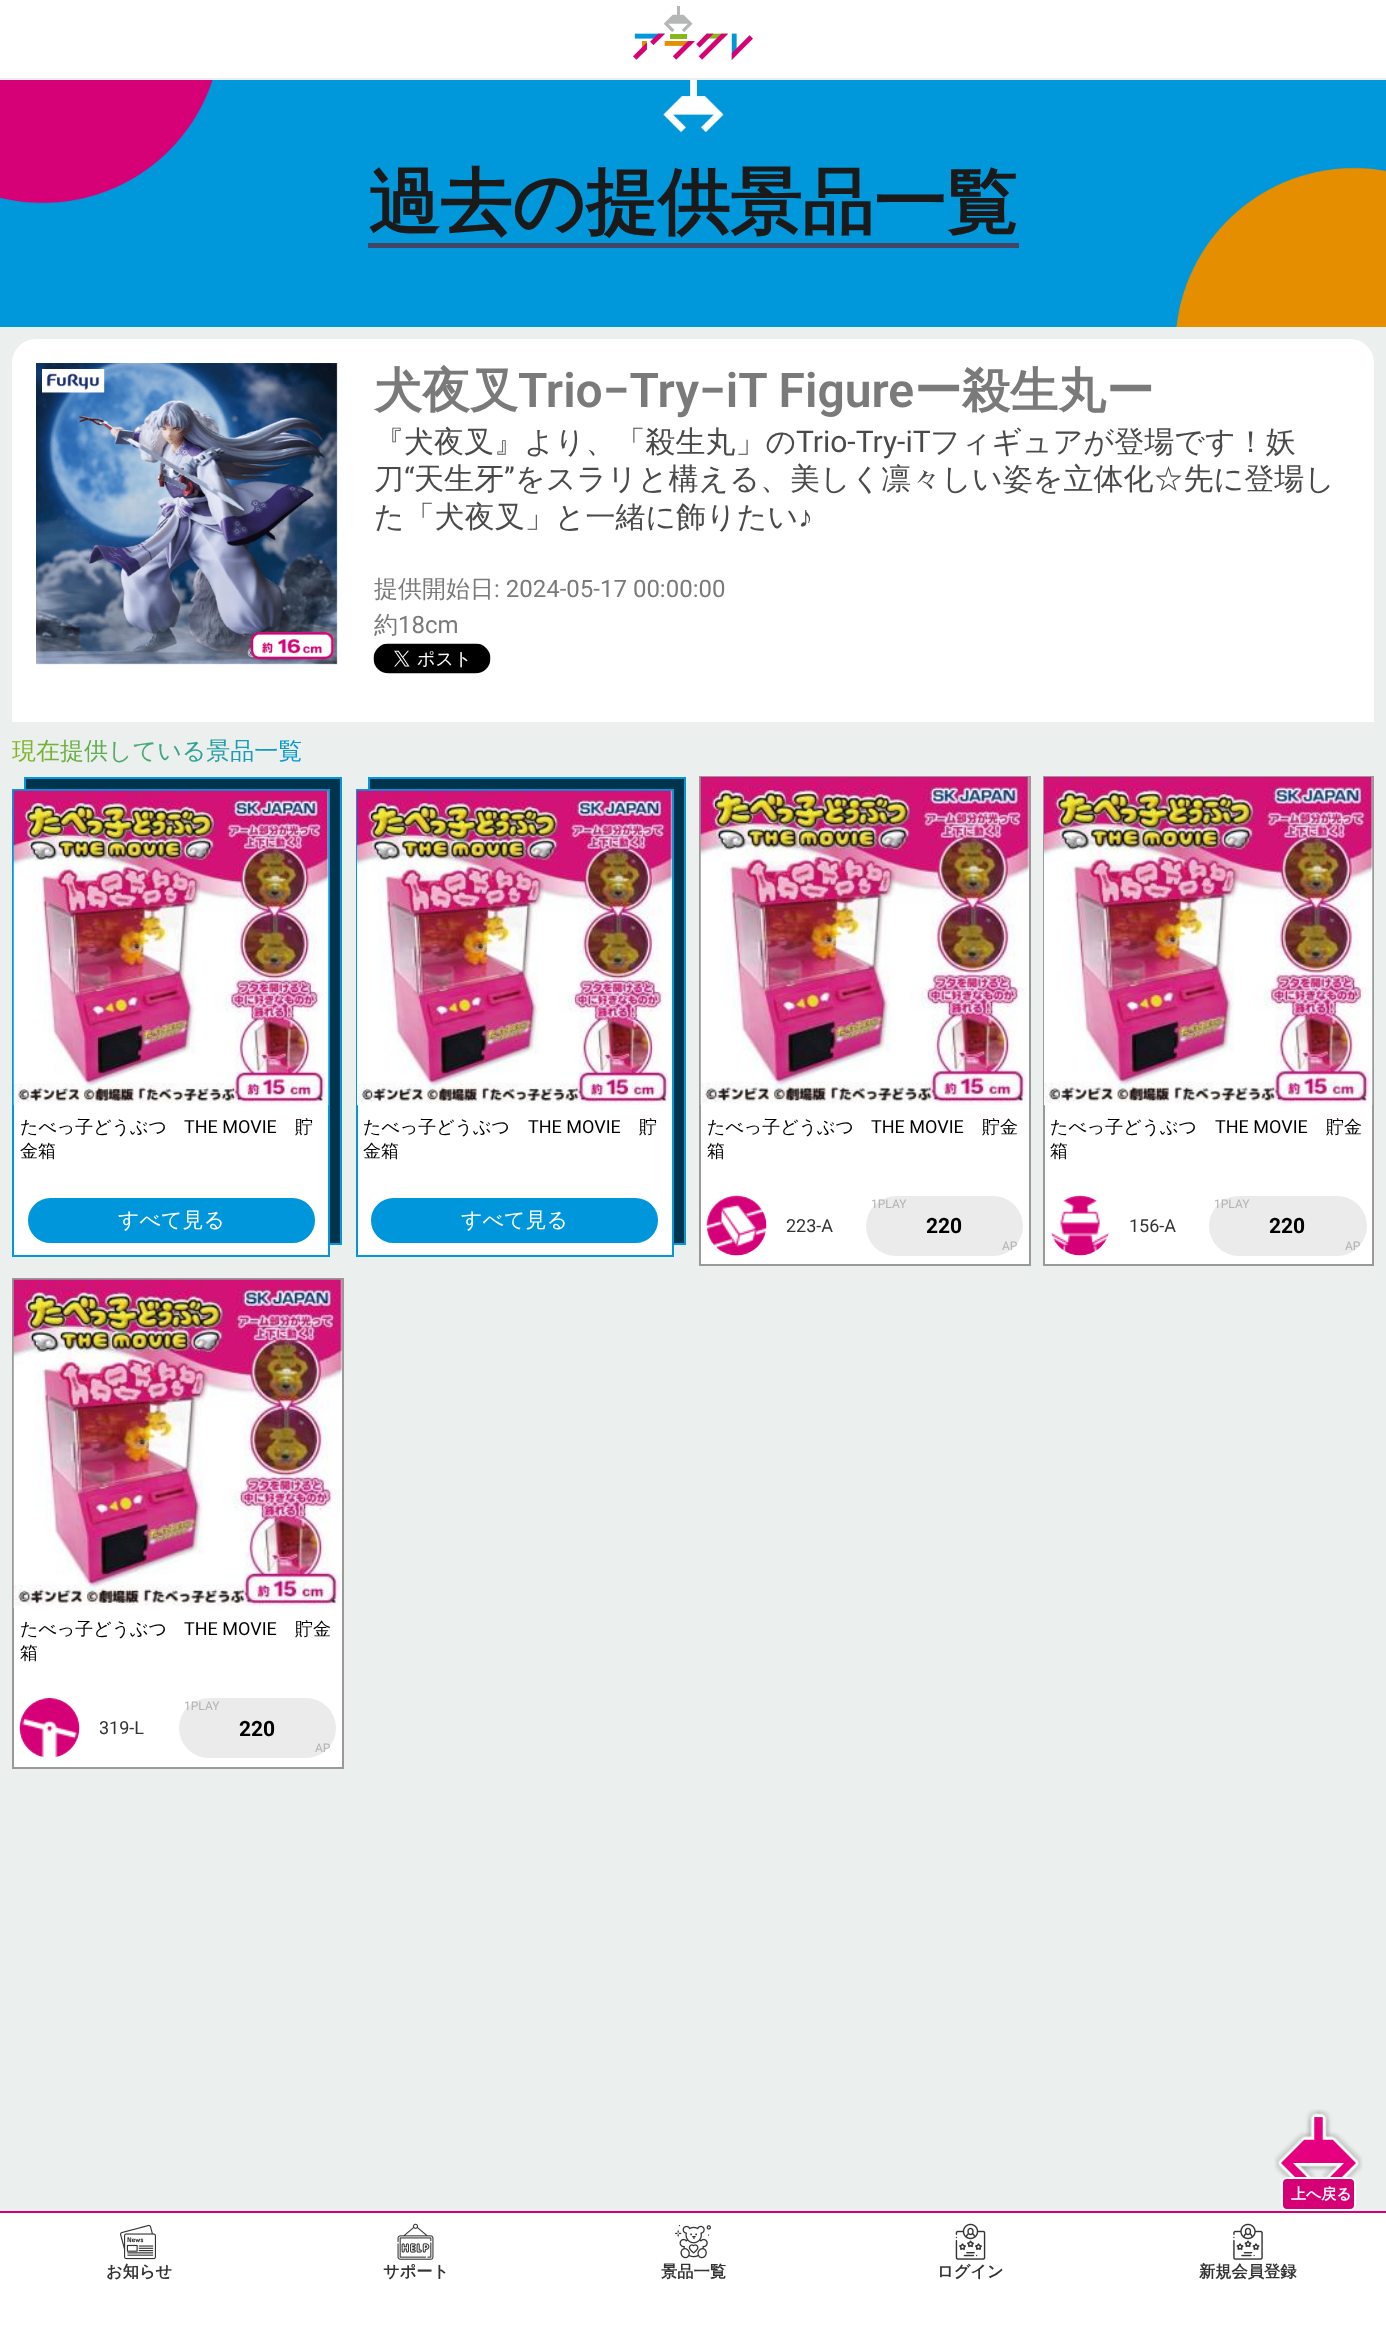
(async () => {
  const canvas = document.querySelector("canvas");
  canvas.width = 1386;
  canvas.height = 2330;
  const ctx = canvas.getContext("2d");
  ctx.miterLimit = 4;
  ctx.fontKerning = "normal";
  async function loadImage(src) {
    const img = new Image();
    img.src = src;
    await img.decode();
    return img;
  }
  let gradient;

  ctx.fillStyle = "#ebefee";
  ctx.fillRect(0, 0, 1386, 2330);
  ctx.fillStyle = "#ffffff";
  ctx.fillRect(0, 0, 1386, 78);
  ctx.drawImage(await loadImage("img/1.png"), 633, 6, 120, 54);
  ctx.drawImage(await loadImage("img/2.png"), 0, 80, 1386, 247);
  ctx.fillStyle = "#444466";
  ctx.fillRect(368, 243, 651, 5);
  ctx.fillStyle = "#ffffff";
  ctx.beginPath();
  ctx.roundRect(12, 339, 1362, 383, [24, 24, 0, 0]);
  ctx.fill();
  ctx.drawImage(await loadImage("img/3.png"), 36, 363, 302, 302);
  ctx.drawImage(await loadImage("img/4.png"), 373, 643, 118, 31);
  ctx.fillStyle = "#00344c";
  ctx.beginPath();
  ctx.rect(25, 778, 316, 466);
  ctx.fill();
  ctx.strokeStyle = "#0097db";
  ctx.lineWidth = 2;
  ctx.stroke();
  ctx.fillStyle = "#ffffff";
  ctx.fillRect(14, 1105, 314, 150);
  ctx.strokeRect(13, 790, 316, 466);
  ctx.drawImage(await loadImage("img/5.png"), 13, 790, 316, 316);
  ctx.fillStyle = "#0096db";
  ctx.beginPath();
  ctx.roundRect(27, 1197, 289, 47, 23.5);
  ctx.fill();
  ctx.strokeStyle = "#ffffff";
  ctx.stroke();
  ctx.fillStyle = "#00344c";
  ctx.beginPath();
  ctx.rect(369, 778, 316, 466);
  ctx.fill();
  ctx.strokeStyle = "#0097db";
  ctx.stroke();
  ctx.fillStyle = "#ffffff";
  ctx.fillRect(358, 1105, 314, 150);
  ctx.strokeRect(357, 790, 316, 466);
  ctx.drawImage(await loadImage("img/6.png"), 357, 790, 315, 316);
  ctx.fillStyle = "#0096db";
  ctx.beginPath();
  ctx.roundRect(370, 1197, 289, 47, 23.5);
  ctx.fill();
  ctx.strokeStyle = "#ffffff";
  ctx.stroke();
  ctx.fillStyle = "#ffffff";
  ctx.fillRect(701, 1105, 328, 159);
  ctx.strokeStyle = "#999999";
  ctx.strokeRect(700, 777, 330, 488);
  ctx.drawImage(await loadImage("img/7.png"), 700, 777, 329, 329);
  ctx.drawImage(await loadImage("img/8.png"), 706, 1195, 61, 61);
  ctx.fillStyle = "#ebebeb";
  ctx.beginPath();
  ctx.roundRect(866, 1196, 157, 60, 30);
  ctx.fill();
  ctx.fillStyle = "#ffffff";
  ctx.fillRect(1045, 1105, 327, 159);
  ctx.strokeRect(1044, 777, 329, 488);
  ctx.drawImage(await loadImage("img/9.png"), 1044, 777, 329, 329);
  ctx.drawImage(await loadImage("img/10.png"), 1051, 1195, 58, 61);
  ctx.fillStyle = "#ebebeb";
  ctx.beginPath();
  ctx.roundRect(1209, 1196, 158, 60, 30);
  ctx.fill();
  ctx.fillStyle = "#ffffff";
  ctx.fillRect(14, 1608, 328, 159);
  ctx.strokeRect(13, 1279, 330, 489);
  ctx.drawImage(await loadImage("img/11.png"), 13, 1279, 329, 329);
  ctx.drawImage(await loadImage("img/12.png"), 19, 1698, 61, 60);
  ctx.fillStyle = "#ebebeb";
  ctx.beginPath();
  ctx.roundRect(179, 1698, 157, 60, 30);
  ctx.fill();
  ctx.drawImage(await loadImage("img/13.png"), 1274, 2109, 89, 69);
  ctx.fillStyle = "#d60076";
  ctx.beginPath();
  ctx.roundRect(1282, 2178, 73, 32, 5);
  ctx.fill();
  ctx.strokeStyle = "#ffffff";
  ctx.stroke();
  ctx.fillStyle = "#ffffff";
  ctx.fillRect(0, 2213, 1386, 117);
  ctx.fillStyle = "#d60076";
  ctx.fillRect(0, 2211, 1386, 2);
  ctx.drawImage(await loadImage("img/14.png"), 120, 2224, 36, 36);
  ctx.drawImage(await loadImage("img/15.png"), 397, 2223, 37, 37);
  ctx.drawImage(await loadImage("img/16.png"), 675, 2224, 36, 35);
  ctx.drawImage(await loadImage("img/17.png"), 955, 2223, 31, 37);
  ctx.drawImage(await loadImage("img/18.png"), 1233, 2223, 30, 37);
  ctx.font = "bold 72px WenQuanYi Zen Hei";
  ctx.fillStyle = "#1a1a1a";
  ctx.fillText("過去の提供景品一覧", 368, 227);
  ctx.font = "bold 48px WenQuanYi Zen Hei";
  ctx.fillStyle = "#7a7a7a";
  ctx.fillText("犬夜叉", 374, 407);
  ctx.font = "600 48px Roboto";
  ctx.fillText("Trio−Try−iT Figure", 518, 407);
  ctx.font = "bold 48px WenQuanYi Zen Hei";
  ctx.fillText("ー殺生丸ー", 914, 407);
  ctx.font = "500 30px WenQuanYi Zen Hei";
  ctx.fillStyle = "#4a4a4a";
  ctx.fillText("『犬夜叉』より、「殺生丸」の", 374, 452);
  ctx.font = "30px Roboto";
  ctx.fillText("Trio-Try-iT", 796, 452);
  ctx.font = "500 30px WenQuanYi Zen Hei";
  ctx.fillText("フィギュアが登場です！妖", 930, 452);
  ctx.fillText("刀", 374, 489);
  ctx.font = "30px Roboto";
  ctx.fillText("“", 404, 489);
  ctx.font = "500 30px WenQuanYi Zen Hei";
  ctx.fillText("天生牙", 414, 489);
  ctx.font = "30px Roboto";
  ctx.fillText("”", 504, 489);
  ctx.font = "500 30px WenQuanYi Zen Hei";
  ctx.fillText("をスラリと構える、美しく凛々しい姿を立体化☆先に登場し", 515, 489);
  ctx.fillText("た「犬夜叉」と一緒に飾りたい", 374, 527);
  ctx.font = "30px Liberation Sans";
  ctx.fillText("♪", 798, 527);
  ctx.font = "500 24px WenQuanYi Zen Hei";
  ctx.fillStyle = "#7a7a7a";
  ctx.fillText("提供開始日", 374, 597);
  ctx.font = "24px Roboto";
  ctx.fillText(": 2024-05-17 00:00:00", 494, 597);
  ctx.font = "500 24px WenQuanYi Zen Hei";
  ctx.fillText("約", 374, 633);
  ctx.font = "24px Roboto";
  ctx.fillText("18cm", 398, 633);
  ctx.font = "500 24px WenQuanYi Zen Hei";
  gradient = ctx.createLinearGradient(302, 752, 12, 752);
  gradient.addColorStop(0, "#0096db");
  gradient.addColorStop(1, "#85b61b");
  ctx.fillStyle = gradient;
  ctx.fillText("現在提供している景品一覧", 12, 759);
  ctx.font = "500 18px WenQuanYi Zen Hei";
  ctx.fillStyle = "#000000";
  ctx.fillText("たべっ子どうぶつ", 20, 1133);
  ctx.font = "18px Roboto";
  ctx.fillText("THE MOVIE", 184, 1133);
  ctx.font = "500 18px WenQuanYi Zen Hei";
  ctx.fillText("貯", 295, 1133);
  ctx.fillText("金箱", 20, 1157);
  ctx.font = "500 21px WenQuanYi Zen Hei";
  ctx.fillStyle = "#ffffff";
  ctx.fillText("すべて見る", 118, 1227);
  ctx.font = "500 18px WenQuanYi Zen Hei";
  ctx.fillStyle = "#000000";
  ctx.fillText("たべっ子どうぶつ", 363, 1133);
  ctx.font = "18px Roboto";
  ctx.fillText("THE MOVIE", 528, 1133);
  ctx.font = "500 18px WenQuanYi Zen Hei";
  ctx.fillText("貯", 639, 1133);
  ctx.fillText("金箱", 363, 1157);
  ctx.font = "500 21px WenQuanYi Zen Hei";
  ctx.fillStyle = "#ffffff";
  ctx.fillText("すべて見る", 461, 1227);
  ctx.font = "500 18px WenQuanYi Zen Hei";
  ctx.fillStyle = "#000000";
  ctx.fillText("たべっ子どうぶつ", 707, 1133);
  ctx.font = "18px Roboto";
  ctx.fillText("THE MOVIE", 871, 1133);
  ctx.font = "500 18px WenQuanYi Zen Hei";
  ctx.fillText("貯金", 982, 1133);
  ctx.fillText("箱", 707, 1157);
  ctx.font = "18px Roboto";
  ctx.fillStyle = "#333333";
  ctx.fillText("223-A", 786, 1232);
  ctx.font = "12px Roboto";
  ctx.fillStyle = "#b2b2b2";
  ctx.fillText("1PLAY", 871, 1208);
  ctx.font = "bold 21px Roboto";
  ctx.fillStyle = "#000000";
  ctx.fillText("220", 926, 1233);
  ctx.font = "12px Roboto";
  ctx.fillStyle = "#b2b2b2";
  ctx.fillText("AP", 1002, 1250);
  ctx.font = "500 18px WenQuanYi Zen Hei";
  ctx.fillStyle = "#000000";
  ctx.fillText("たべっ子どうぶつ", 1050, 1133);
  ctx.font = "18px Roboto";
  ctx.fillText("THE MOVIE", 1215, 1133);
  ctx.font = "500 18px WenQuanYi Zen Hei";
  ctx.fillText("貯金", 1326, 1133);
  ctx.fillText("箱", 1050, 1157);
  ctx.font = "18px Roboto";
  ctx.fillStyle = "#333333";
  ctx.fillText("156-A", 1129, 1232);
  ctx.font = "12px Roboto";
  ctx.fillStyle = "#b2b2b2";
  ctx.fillText("1PLAY", 1214, 1208);
  ctx.font = "bold 21px Roboto";
  ctx.fillStyle = "#000000";
  ctx.fillText("220", 1269, 1233);
  ctx.font = "12px Roboto";
  ctx.fillStyle = "#b2b2b2";
  ctx.fillText("AP", 1345, 1250);
  ctx.font = "500 18px WenQuanYi Zen Hei";
  ctx.fillStyle = "#000000";
  ctx.fillText("たべっ子どうぶつ", 20, 1635);
  ctx.font = "18px Roboto";
  ctx.fillText("THE MOVIE", 184, 1635);
  ctx.font = "500 18px WenQuanYi Zen Hei";
  ctx.fillText("貯金", 295, 1635);
  ctx.fillText("箱", 20, 1659);
  ctx.font = "18px Roboto";
  ctx.fillStyle = "#333333";
  ctx.fillText("319-L", 99, 1734);
  ctx.font = "12px Roboto";
  ctx.fillStyle = "#b2b2b2";
  ctx.fillText("1PLAY", 184, 1710);
  ctx.font = "bold 21px Roboto";
  ctx.fillStyle = "#000000";
  ctx.fillText("220", 239, 1736);
  ctx.font = "12px Roboto";
  ctx.fillStyle = "#b2b2b2";
  ctx.fillText("AP", 315, 1752);
  ctx.font = "bold 15px WenQuanYi Zen Hei";
  ctx.fillStyle = "#ffffff";
  ctx.fillText("上へ戻る", 1291, 2199);
  ctx.font = "bold 16.25px WenQuanYi Zen Hei";
  ctx.fillStyle = "#333333";
  for (const [text, x, y] of [
    ["お知らせ", 106, 2277],
    ["サポート", 383, 2277],
    ["景品一覧", 661, 2277],
    ["ログイン", 937, 2277],
    ["新規会員登録", 1199, 2277],
  ]) {
    ctx.fillText(text, x, y);
  }
})();
